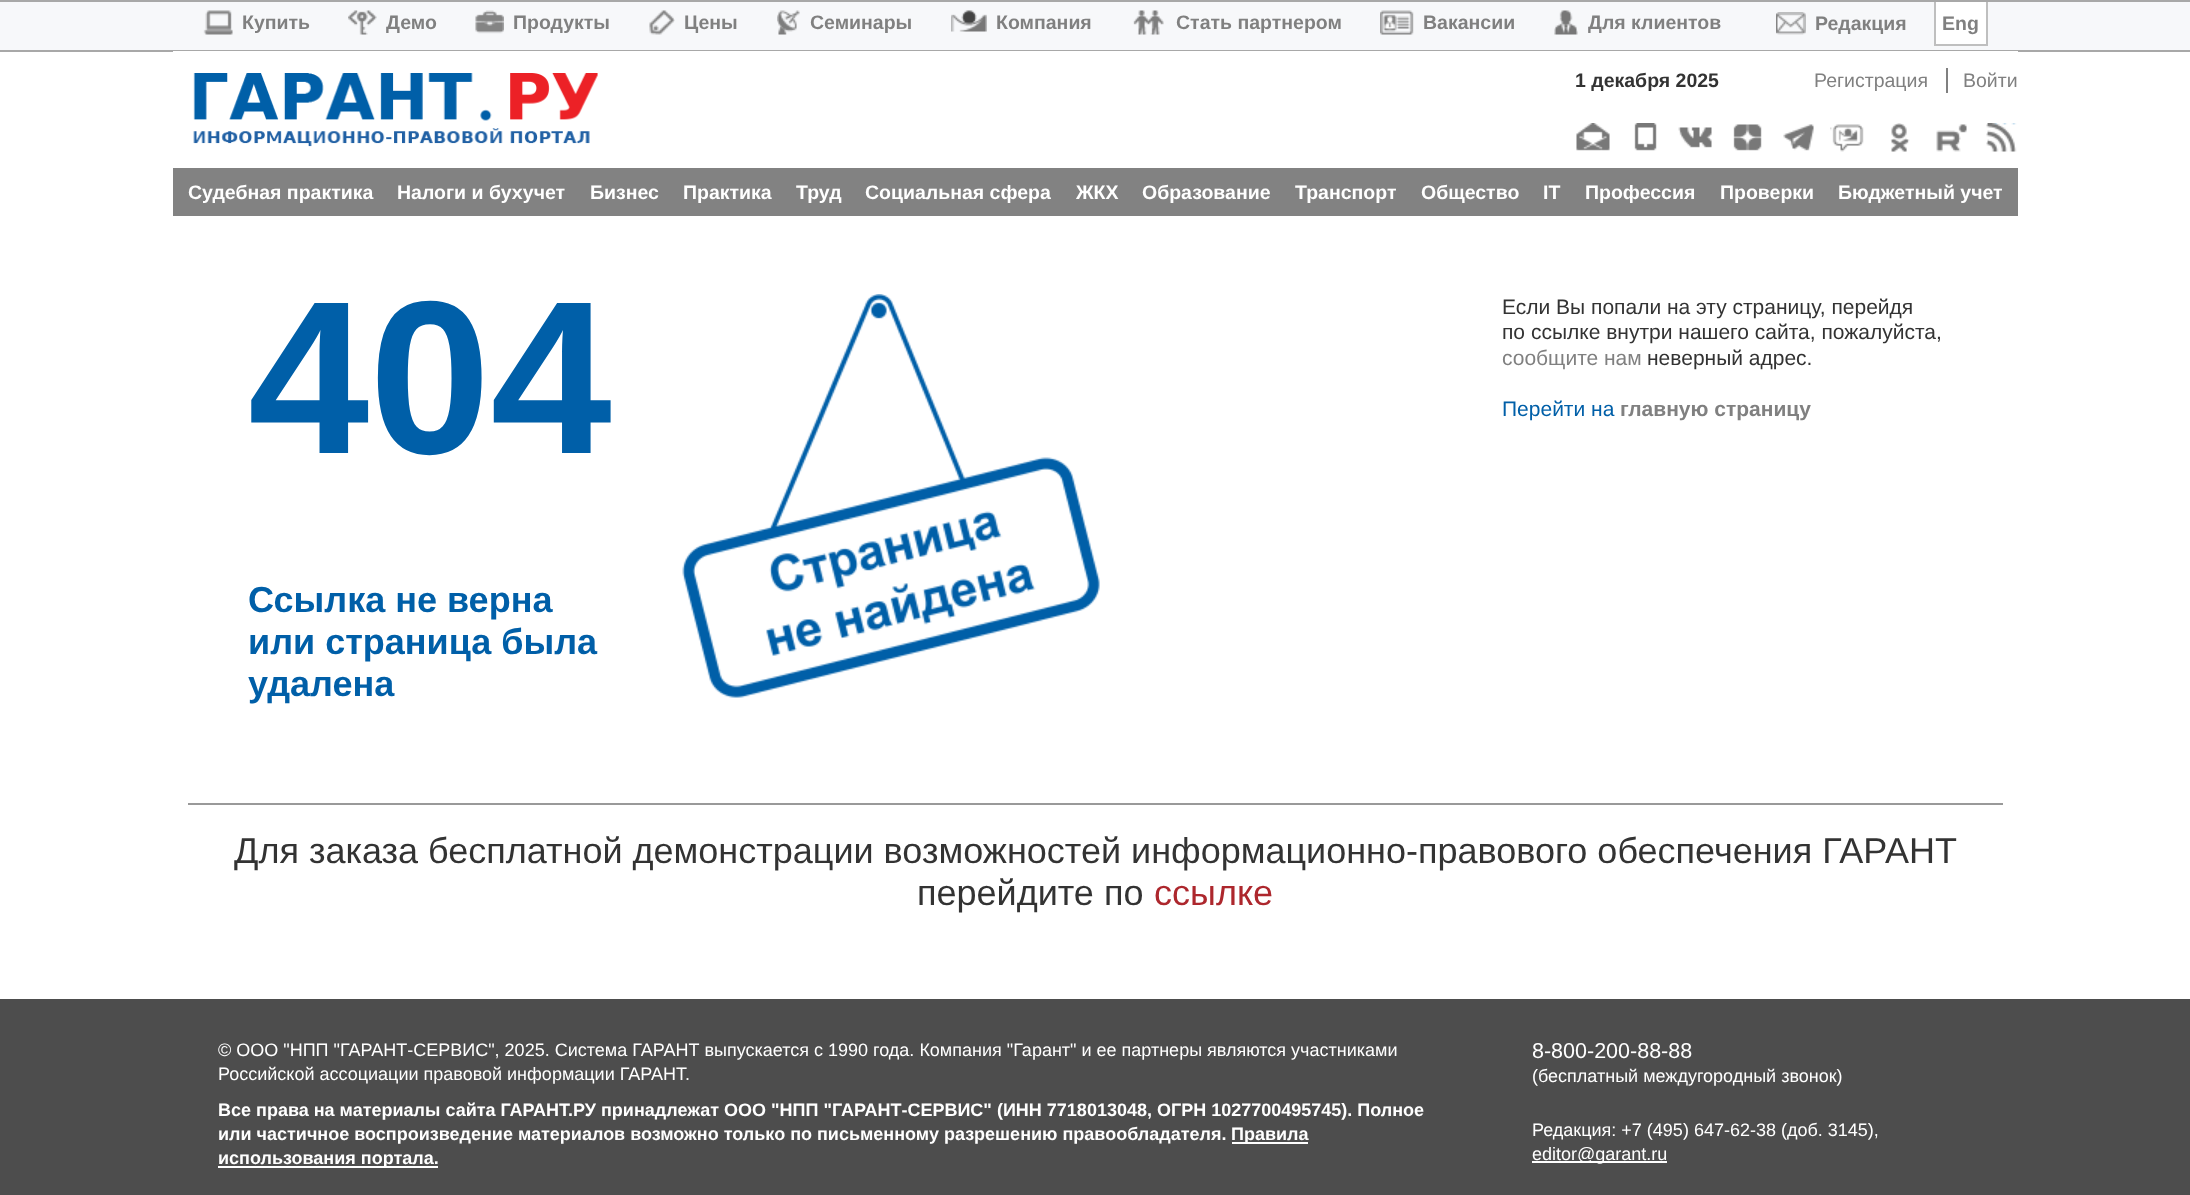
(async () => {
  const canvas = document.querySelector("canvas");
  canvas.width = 2190;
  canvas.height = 1195;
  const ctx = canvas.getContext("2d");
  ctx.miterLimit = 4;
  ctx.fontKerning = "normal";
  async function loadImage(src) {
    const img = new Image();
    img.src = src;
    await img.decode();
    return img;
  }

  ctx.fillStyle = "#ffffff";
  ctx.fillRect(0, 0, 2190, 1195);
  for (const [x, y, w, h, color] of [
    [0, 2, 2190, 48, "#f7f8fa"],
    [0, 0, 2190, 2, "#a8a8a8"],
    [0, 50, 2190, 2, "#a8a8a8"],
  ]) {
    ctx.fillStyle = color;
    ctx.fillRect(x, y, w, h);
  }
  ctx.drawImage(await loadImage("img/1.png"), 203, 10, 30, 25);
  ctx.drawImage(await loadImage("img/2.png"), 348, 10, 29, 25);
  ctx.drawImage(await loadImage("img/3.png"), 475, 10, 29, 24);
  ctx.drawImage(await loadImage("img/4.png"), 649, 10, 26, 25);
  ctx.drawImage(await loadImage("img/5.png"), 777, 10, 23, 25);
  ctx.drawImage(await loadImage("img/6.png"), 951, 10, 36, 22);
  ctx.drawImage(await loadImage("img/7.png"), 1133, 10, 31, 25);
  ctx.drawImage(await loadImage("img/8.png"), 1380, 10, 34, 25);
  ctx.drawImage(await loadImage("img/9.png"), 1554, 10, 24, 25);
  ctx.drawImage(await loadImage("img/10.png"), 1776, 12, 30, 23);
  for (const [x, y, w, h, color] of [
    [1936, 2, 50, 42, "#ffffff"],
    [1986, 2, 2, 43, "#bfbfbf"],
    [1934, 44, 54, 2, "#bfbfbf"],
    [1934, 2, 2, 43, "#bfbfbf"],
    [173, 51, 1845, 1, "#ffffff"],
  ]) {
    ctx.fillStyle = color;
    ctx.fillRect(x, y, w, h);
  }
  ctx.drawImage(await loadImage("img/11.png"), 193, 73, 405, 74);
  ctx.fillStyle = "#808080";
  ctx.fillRect(1946, 68, 2, 25);
  ctx.drawImage(await loadImage("img/12.png"), 1576, 123, 34, 28);
  ctx.drawImage(await loadImage("img/13.png"), 1634, 123, 23, 28);
  ctx.drawImage(await loadImage("img/14.png"), 1678, 127, 34, 21);
  ctx.drawImage(await loadImage("img/15.png"), 1733, 124, 29, 27);
  ctx.drawImage(await loadImage("img/16.png"), 1783, 124, 31, 27);
  ctx.drawImage(await loadImage("img/17.png"), 1830, 124, 34, 28);
  ctx.drawImage(await loadImage("img/18.png"), 1890, 123, 20, 29);
  ctx.drawImage(await loadImage("img/19.png"), 1936, 124, 31, 28);
  ctx.drawImage(await loadImage("img/20.png"), 1986, 123, 31, 29);
  ctx.fillStyle = "#828282";
  ctx.fillRect(173, 168, 1845, 48);
  ctx.drawImage(await loadImage("img/21.png"), 682, 294, 418, 404);
  for (const [x, y, w, h, color] of [
    [188, 803, 1815, 2, "#999999"],
    [0, 999, 2190, 196, "#4d4d4d"],
    [1232, 1142, 76, 2, "#ffffff"],
    [218, 1166, 220, 2, "#ffffff"],
    [1532, 1161, 135, 2, "#ffffff"],
  ]) {
    ctx.fillStyle = color;
    ctx.fillRect(x, y, w, h);
  }
  ctx.font = "bold 19.5px Liberation Sans";
  ctx.fillStyle = "#808080";
  for (const [text, x, y] of [
    ["Купить", 242, 29],
    ["Демо", 386, 29],
    ["Продукты", 513, 29],
    ["Цены", 684, 29],
    ["Семинары", 810, 29],
    ["Компания", 996, 29],
    ["Стать партнером", 1176, 29],
    ["Вакансии", 1423, 29],
    ["Для клиентов", 1588, 29],
    ["Редакция", 1815, 30],
    ["Eng", 1942, 30],
  ]) {
    ctx.fillText(text, x, y);
  }
  ctx.fillStyle = "#333333";
  ctx.fillText("1 декабря 2025", 1575, 87);
  ctx.font = "19.5px Liberation Sans";
  ctx.fillStyle = "#808080";
  ctx.fillText("Регистрация", 1814, 87);
  ctx.fillText("Войти", 1963, 87);
  ctx.font = "bold 19.5px Liberation Sans";
  ctx.fillStyle = "#ffffff";
  for (const [text, x, y] of [
    ["Судебная практика", 188, 199],
    ["Налоги и бухучет", 397, 199],
    ["Бизнес", 590, 199],
    ["Практика", 683, 199],
    ["Труд", 796, 199],
    ["Социальная сфера", 865, 199],
    ["ЖКХ", 1076, 199],
    ["Образование", 1142, 199],
    ["Транспорт", 1295, 199],
    ["Общество", 1421, 199],
    ["IT", 1543, 199],
    ["Профессия", 1585, 199],
    ["Проверки", 1720, 199],
    ["Бюджетный учет", 1838, 199],
  ]) {
    ctx.fillText(text, x, y);
  }
  ctx.font = "bold 218px Liberation Sans";
  ctx.fillStyle = "#005fa8";
  ctx.fillText("404", 248, 453);
  ctx.font = "bold 36px Liberation Sans";
  for (const [text, x, y] of [
    ["Ссылка не верна", 248, 612],
    ["или страница была", 248, 654],
    ["удалена", 248, 696],
  ]) {
    ctx.fillText(text, x, y);
  }
  ctx.font = "21px Liberation Sans";
  ctx.fillStyle = "#333333";
  ctx.fillText("Если Вы попали на эту страницу, перейдя", 1502, 314);
  ctx.fillText("по ссылке внутри нашего сайта, пожалуйста,", 1502, 339);
  ctx.fillStyle = "#808080";
  ctx.fillText("сообщите нам", 1502, 365);
  ctx.fillStyle = "#333333";
  ctx.fillText("неверный адрес.", 1647, 365);
  ctx.fillStyle = "#005fa8";
  ctx.fillText("Перейти на", 1502, 416);
  ctx.font = "bold 21px Liberation Sans";
  ctx.fillStyle = "#808080";
  ctx.fillText("главную страницу", 1620, 416);
  ctx.font = "36px Liberation Sans";
  ctx.fillStyle = "#333333";
  ctx.fillText("Для заказа бесплатной демонстрации возможностей информационно-правового обеспечения ГАРАНТ", 234, 863);
  ctx.fillText("перейдите по", 917, 905);
  ctx.fillStyle = "#ad272d";
  ctx.fillText("ссылке", 1154, 905);
  ctx.font = "18px Liberation Sans";
  ctx.fillStyle = "#ffffff";
  ctx.fillText("© ООО \"НПП \"ГАРАНТ-СЕРВИС\", 2025. Система ГАРАНТ выпускается с 1990 года. Компания \"Гарант\" и ее партнеры являются участниками", 218, 1056);
  ctx.fillText("Российской ассоциации правовой информации ГАРАНТ.", 218, 1080);
  ctx.font = "bold 18px Liberation Sans";
  for (const [text, x, y] of [
    ["Все права на материалы сайта ГАРАНТ.РУ принадлежат ООО \"НПП \"ГАРАНТ-СЕРВИС\" (ИНН 7718013048, ОГРН 1027700495745). Полное", 218, 1116],
    ["или частичное воспроизведение материалов возможно только по письменному разрешению правообладателя.", 218, 1140],
    ["Правила", 1231, 1140],
    ["использования портала.", 218, 1164],
  ]) {
    ctx.fillText(text, x, y);
  }
  ctx.font = "21.5px Liberation Sans";
  ctx.fillText("8-800-200-88-88", 1532, 1058);
  ctx.font = "18px Liberation Sans";
  for (const [text, x, y] of [
    ["(бесплатный междугородный звонок)", 1532, 1082],
    ["Редакция: +7 (495) 647-62-38 (доб. 3145),", 1532, 1136],
    ["editor@garant.ru", 1532, 1160],
  ]) {
    ctx.fillText(text, x, y);
  }
})();
